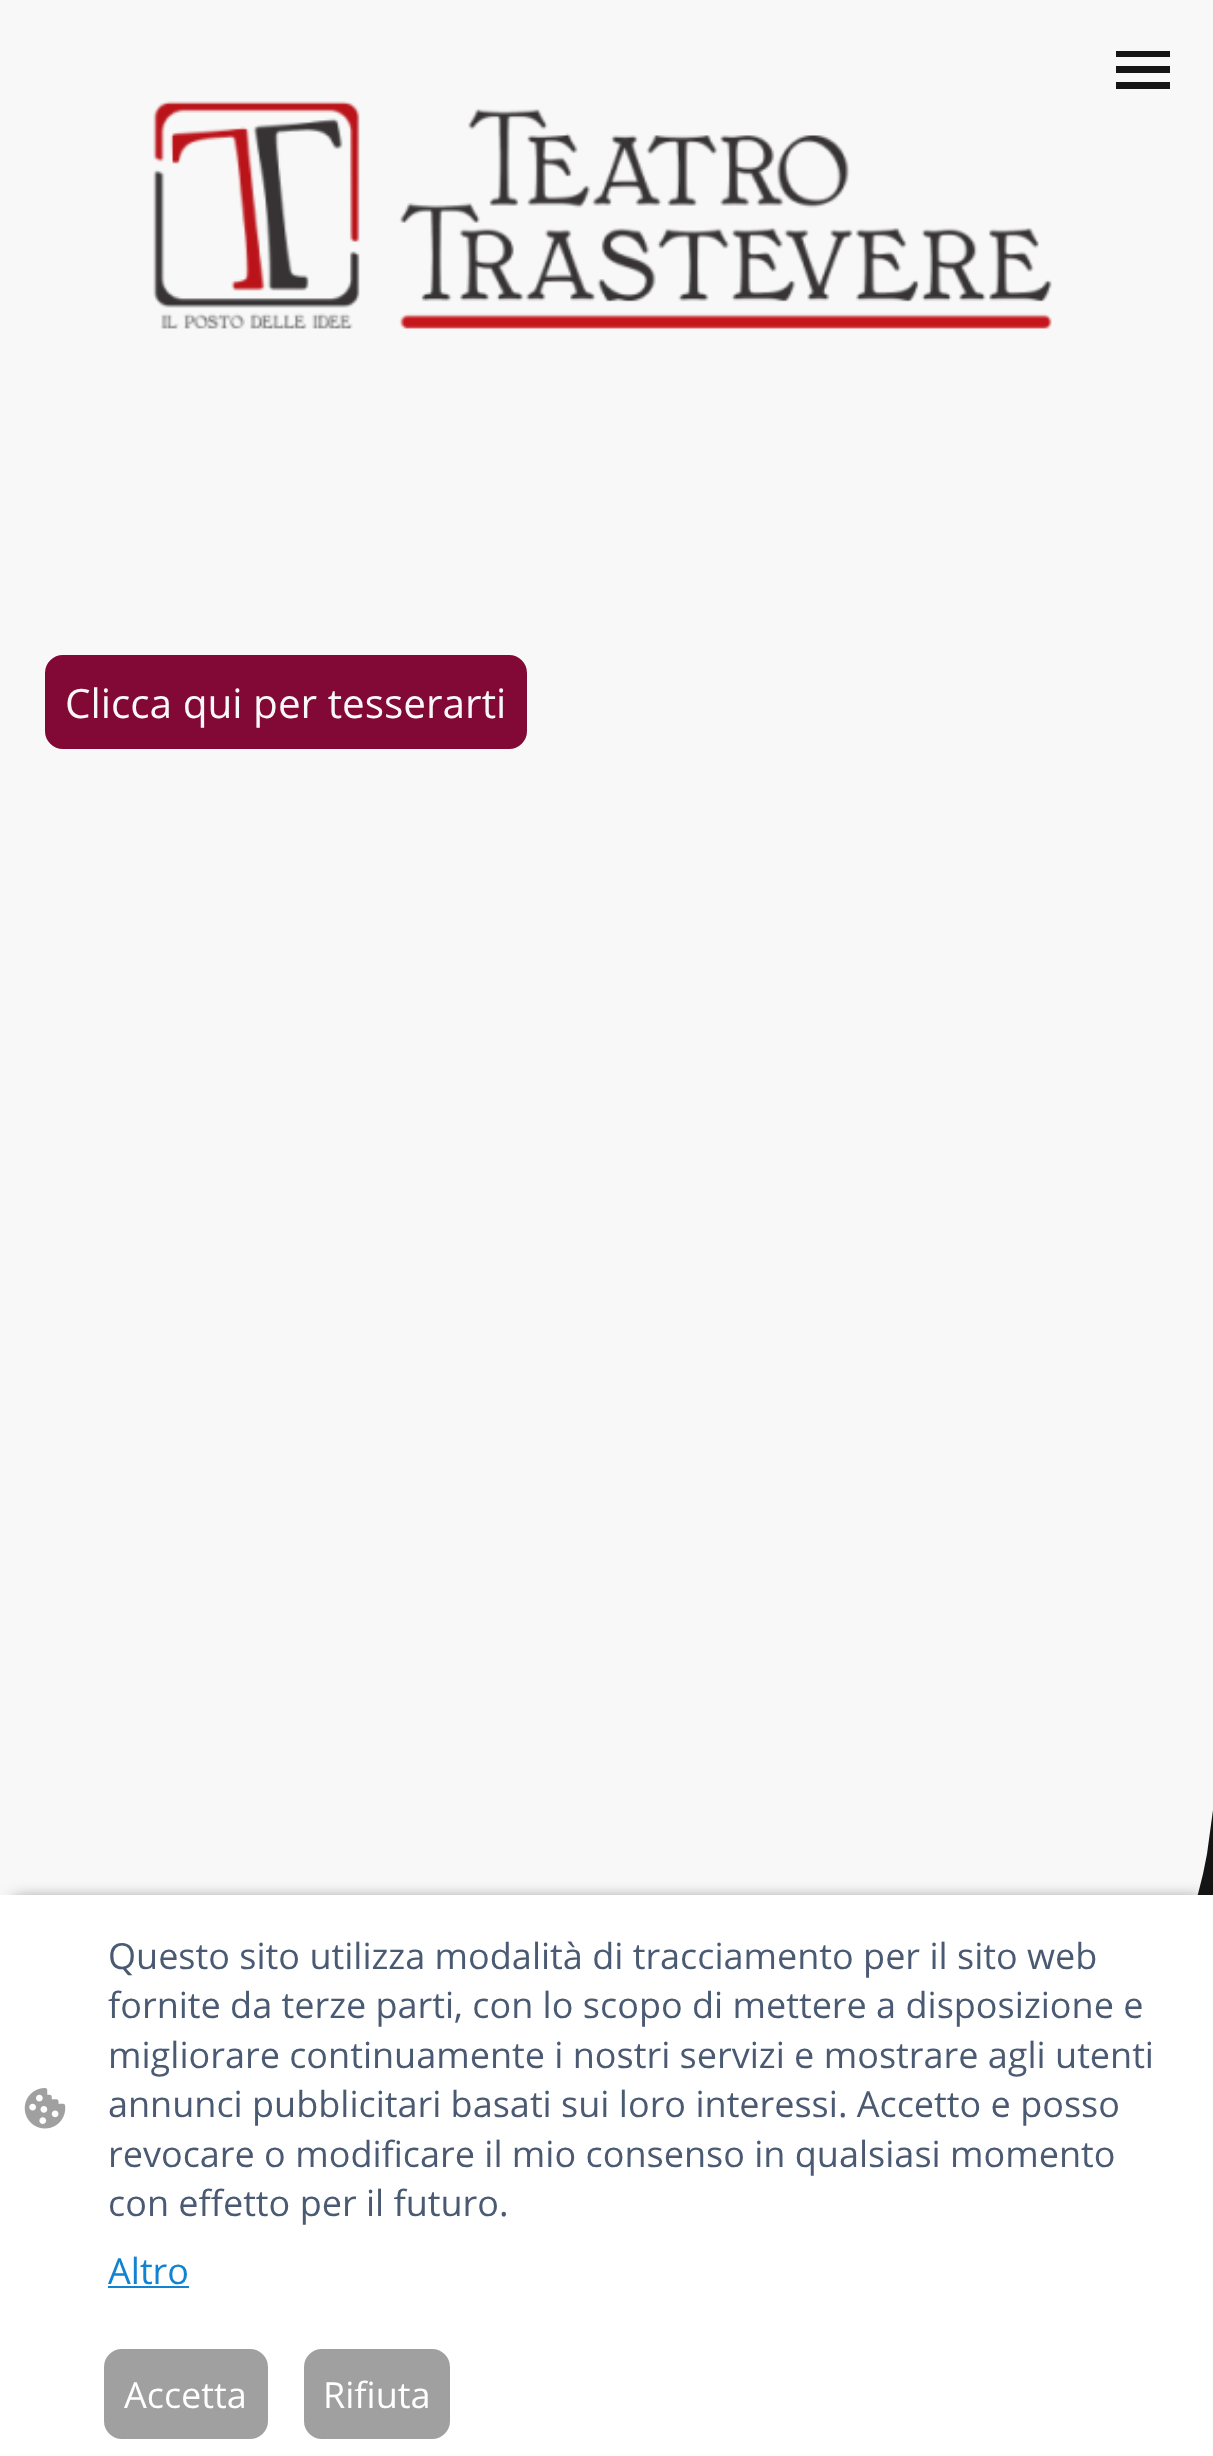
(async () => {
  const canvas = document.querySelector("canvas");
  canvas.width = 1213;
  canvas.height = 2456;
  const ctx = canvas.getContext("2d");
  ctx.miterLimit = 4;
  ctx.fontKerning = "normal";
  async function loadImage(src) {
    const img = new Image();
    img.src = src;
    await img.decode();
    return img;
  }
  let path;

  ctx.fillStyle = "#f8f8f8";
  ctx.fillRect(0, 0, 1213, 2456);
  for (const [x, y, w, h, color] of [
    [1116, 51, 54, 6, "#151515"],
    [1116, 66, 54, 7, "#151515"],
    [1116, 82, 54, 7, "#151515"],
  ]) {
    ctx.fillStyle = color;
    ctx.fillRect(x, y, w, h);
  }
  ctx.drawImage(await loadImage("img/1.png"), 153, 101, 899, 228);
  ctx.fillStyle = "#820835";
  ctx.beginPath();
  ctx.roundRect(46, 656, 480, 92, 17);
  ctx.fill();
  ctx.strokeStyle = "#820835";
  ctx.lineWidth = 2;
  ctx.stroke();
  ctx.fillStyle = "#151515";
  path = new Path2D("M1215 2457V1764L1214 1787L1213 1810L1210 1832L1207 1854L1203 1874L1198 1894L1192 1912L1185 1930L1178 1946L1170 1960L1162 1973L1153 1985L1143 1994L1134 2002L1124 2007L1113 2010L102 2207L91 2208L81 2206L72 2203L62 2197L53 2189L45 2179L37 2168L30 2155L23 2140L17 2124L12 2106L8 2087L5 2067L2 2045L1 2023L0 2000V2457Z");
  ctx.fill(path);
  ctx.fillStyle = "rgba(0, 0, 0, 0.63)";
  ctx.filter = "blur(9px)";
  ctx.beginPath();
  ctx.rect(14, 1901, 1188, 536);
  ctx.fill();
  ctx.filter = "none";
  ctx.fillStyle = "#ffffff";
  ctx.fillRect(0, 1895, 1213, 561);
  ctx.drawImage(await loadImage("img/2.png"), 24, 2088, 42, 41);
  ctx.fillStyle = "#1183d1";
  ctx.fillRect(108, 2286, 81, 2);
  ctx.fillStyle = "#a0a0a0";
  ctx.beginPath();
  ctx.roundRect(105, 2350, 162, 88, 17);
  ctx.fill();
  ctx.strokeStyle = "#a0a0a0";
  ctx.stroke();
  ctx.beginPath();
  ctx.roundRect(305, 2350, 144, 88, 17);
  ctx.fill();
  ctx.stroke();
  ctx.font = "40.5px Open Sans";
  ctx.fillStyle = "#f8f8f8";
  ctx.fillText("Clicca qui per tesserarti", 65, 718);
  ctx.font = "36px Open Sans";
  ctx.fillStyle = "#4a5a73";
  for (const [text, x, y] of [
    ["Questo sito utilizza modalità di tracciamento per il sito web", 108, 1969],
    ["fornite da terze parti, con lo scopo di mettere a disposizione e", 108, 2018],
    ["migliorare continuamente i nostri servizi e mostrare agli utenti", 108, 2068],
    ["annunci pubblicitari basati sui loro interessi. Accetto e posso", 108, 2117],
    ["revocare o modificare il mio consenso in qualsiasi momento", 108, 2167],
    ["con effetto per il futuro.", 108, 2216],
  ]) {
    ctx.fillText(text, x, y);
  }
  ctx.fillStyle = "#1183d1";
  ctx.fillText("Altro", 108, 2284);
  ctx.fillStyle = "#ffffff";
  ctx.fillText("Accetta", 124, 2408);
  ctx.fillText("Rifiuta", 323, 2408);
})();
